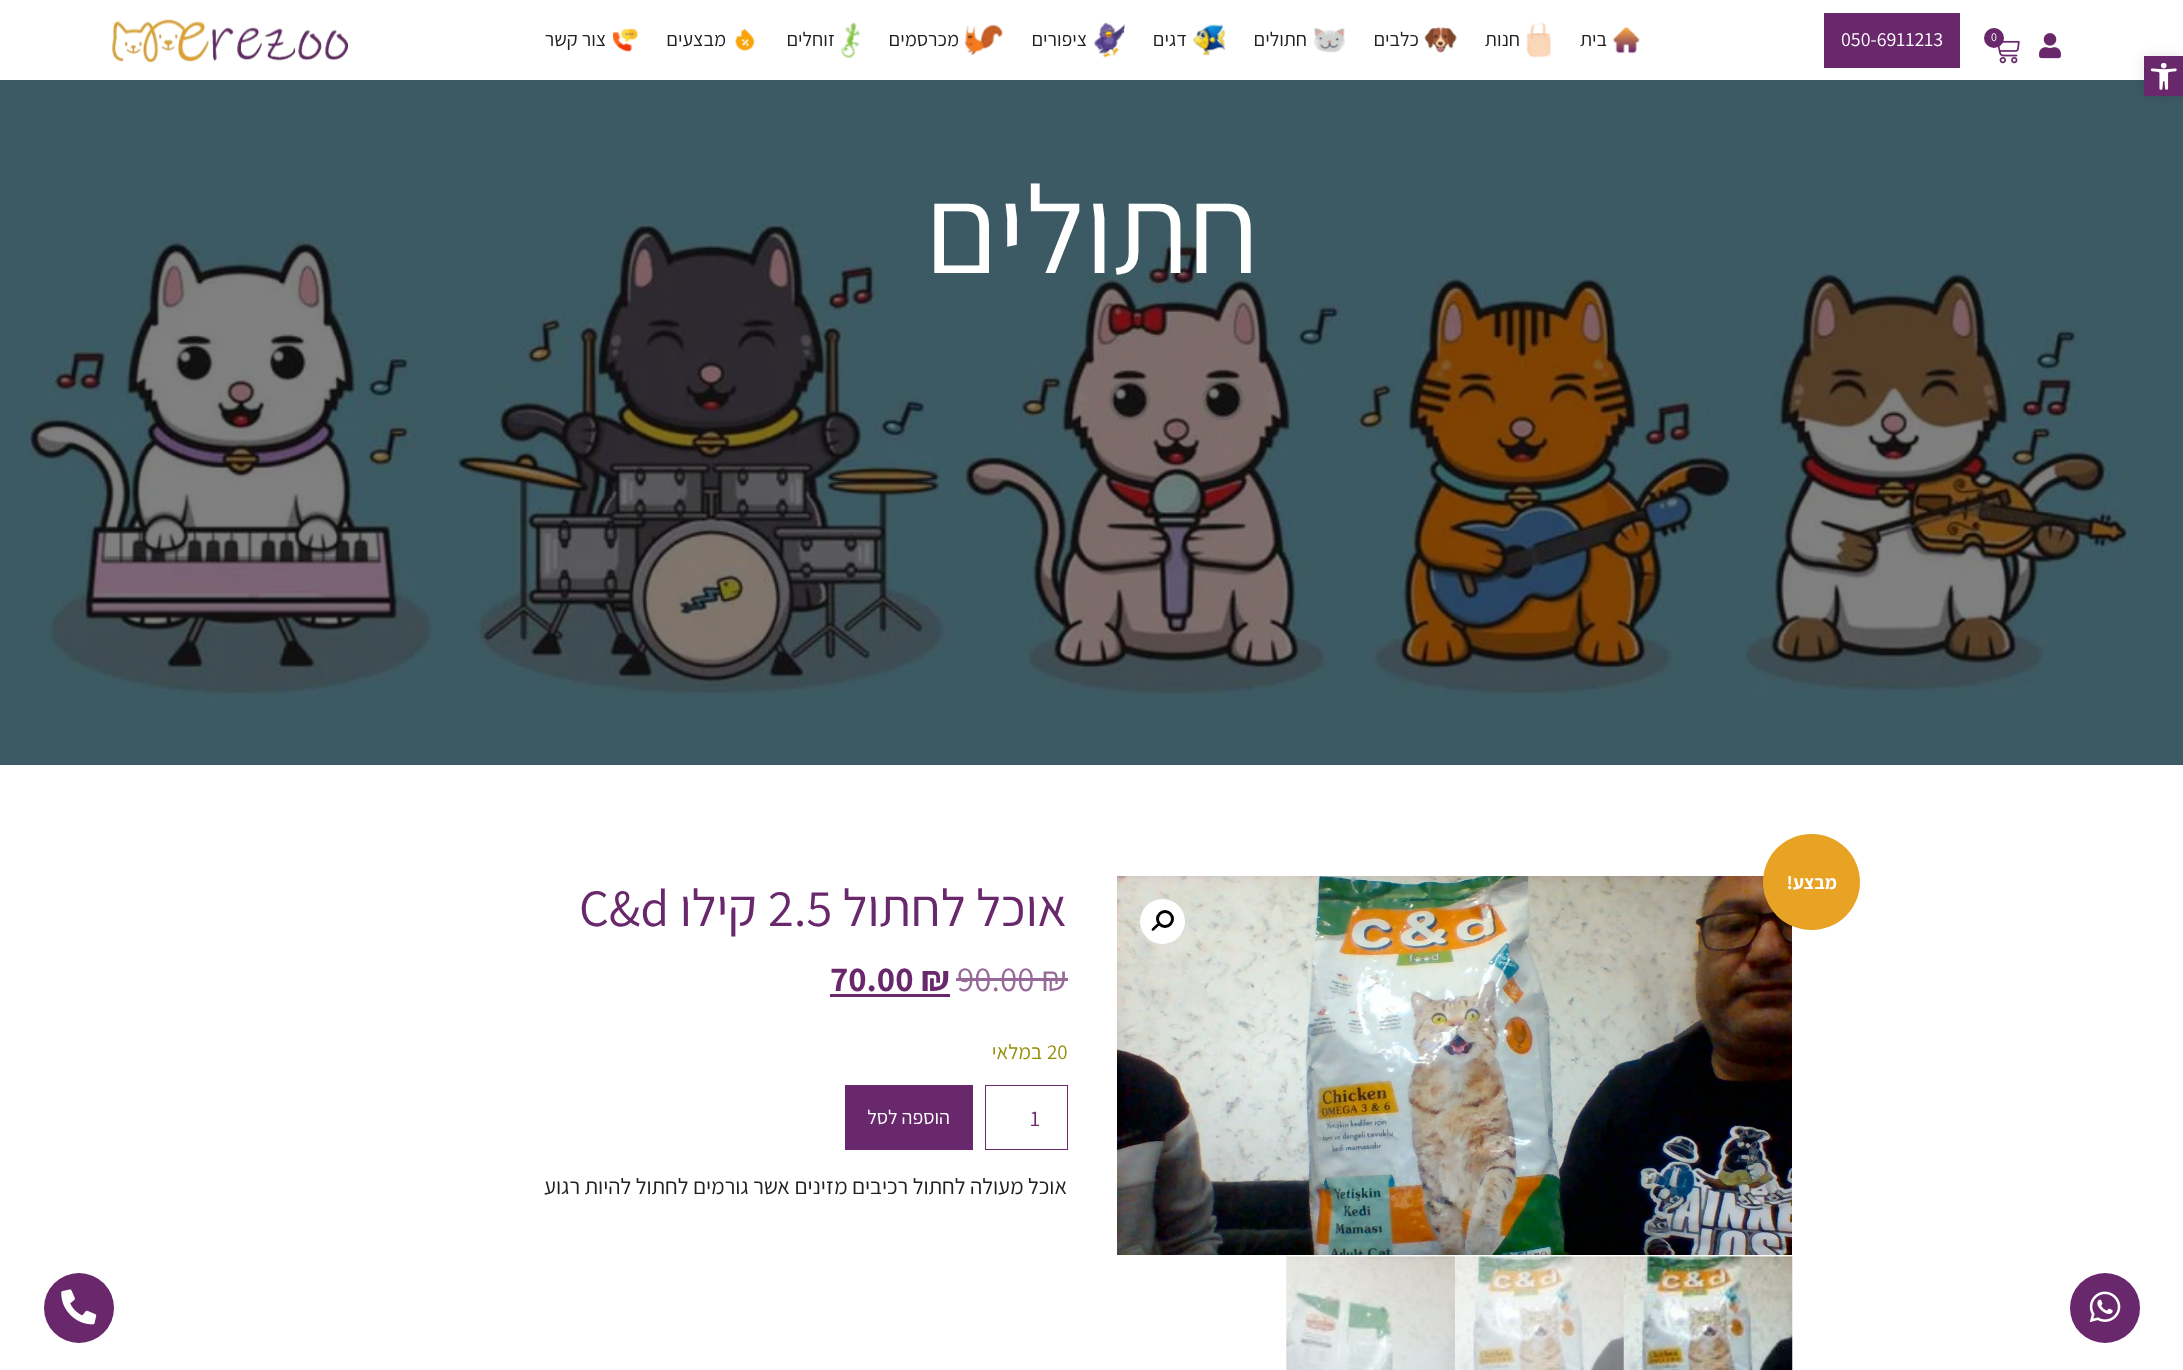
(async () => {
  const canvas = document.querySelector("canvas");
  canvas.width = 2183;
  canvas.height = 1370;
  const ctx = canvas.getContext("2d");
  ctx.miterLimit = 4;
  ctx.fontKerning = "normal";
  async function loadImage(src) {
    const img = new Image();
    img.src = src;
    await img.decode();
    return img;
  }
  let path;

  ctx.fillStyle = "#ffffff";
  ctx.fillRect(0, 0, 2183, 1370);
  ctx.drawImage(await loadImage("img/15.png"), 0, 80, 2183, 685);
  ctx.fillStyle = "rgba(0, 0, 0, 0.1)";
  ctx.filter = "blur(6px)";
  ctx.beginPath();
  ctx.rect(2144, 56, 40, 40);
  ctx.fill();
  ctx.filter = "none";
  ctx.fillStyle = "#69276c";
  ctx.fillRect(2144, 56, 39, 40);
  ctx.drawImage(await loadImage("img/1.png"), 2150, 63, 27, 27);
  ctx.drawImage(await loadImage("img/2.png"), 2039, 33, 22, 26);
  ctx.drawImage(await loadImage("img/3.png"), 1998, 40, 22, 24);
  ctx.beginPath();
  ctx.arc(1994, 38, 10, 0, Math.PI * 2);
  ctx.fill();
  ctx.fillRect(1824, 13, 136, 55);
  ctx.drawImage(await loadImage("img/4.png"), 1613, 27, 27, 27);
  ctx.drawImage(await loadImage("img/5.png"), 1526, 22, 25, 36);
  ctx.drawImage(await loadImage("img/6.png"), 1424, 27, 33, 26);
  ctx.drawImage(await loadImage("img/7.png"), 1313, 28, 32, 25);
  ctx.drawImage(await loadImage("img/8.png"), 1193, 24, 33, 32);
  ctx.drawImage(await loadImage("img/9.png"), 1093, 22, 33, 36);
  ctx.drawImage(await loadImage("img/10.png"), 964, 24, 39, 32);
  ctx.drawImage(await loadImage("img/11.png"), 840, 22, 21, 37);
  ctx.drawImage(await loadImage("img/12.png"), 735, 28, 20, 23);
  ctx.drawImage(await loadImage("img/13.png"), 613, 28, 25, 24);
  ctx.drawImage(await loadImage("img/14.png"), 111, 19, 238, 44);
  ctx.drawImage(await loadImage("img/16.png"), 1117, 876, 675, 379);
  ctx.fillStyle = "#e8a325";
  ctx.beginPath();
  ctx.roundRect(1763, 834, 97, 96, 48);
  ctx.fill();
  ctx.fillStyle = "#ffffff";
  ctx.beginPath();
  ctx.arc(1162.5, 921.5, 22.5, 0, Math.PI * 2);
  ctx.fill();
  ctx.beginPath();
  ctx.arc(1165, 919, 7.5, 0, Math.PI * 2);
  ctx.strokeStyle = "#000000";
  ctx.lineWidth = 3;
  ctx.stroke();
  ctx.fillStyle = "#000000";
  path = new Path2D("M1159 923.5C1160.5 925 1157.5 927 1156.5 928C1155.5 928.5 1153.5 932 1152 930.5C1150.5 929 1154 927 1154.5 926C1155.5 925.5 1157.5 922 1159 923.5Z");
  ctx.fill(path);
  ctx.drawImage(await loadImage("img/17.png"), 1623, 1256, 170, 114);
  ctx.drawImage(await loadImage("img/18.png"), 1455, 1256, 169, 114);
  ctx.drawImage(await loadImage("img/19.png"), 1286, 1256, 169, 114);
  ctx.fillStyle = "#966898";
  ctx.fillRect(956, 978, 112, 3);
  ctx.fillStyle = "#69276c";
  ctx.fillRect(830, 994, 120, 3);
  ctx.strokeStyle = "#69276c";
  ctx.lineWidth = 1;
  ctx.strokeRect(985.5, 1085.5, 82, 64);
  ctx.fillRect(845, 1085, 128, 65);
  ctx.beginPath();
  ctx.arc(2105, 1308, 35, 0, Math.PI * 2);
  ctx.fill();
  ctx.drawImage(await loadImage("img/20.png"), 2089, 1291, 32, 32);
  ctx.beginPath();
  ctx.arc(79, 1308, 35, 0, Math.PI * 2);
  ctx.fill();
  ctx.drawImage(await loadImage("img/21.png"), 61, 1289, 36, 36);
  ctx.font = "12px Assistant";
  ctx.fillStyle = "#ffffff";
  ctx.fillText("0", 1991, 41);
  ctx.font = "20px Assistant";
  ctx.fillText("050-6911213", 1841, 46);
  ctx.direction = "rtl";
  ctx.fillStyle = "#202020";
  for (const [text, x, y] of [
    ["בית", 1607, 46],
    ["חנות", 1520, 46],
    ["כלבים", 1419, 46],
    ["חתולים", 1307, 46],
    ["דגים", 1187, 46],
    ["ציפורים", 1087, 46],
    ["מכרסמים", 959, 46],
    ["זוחלים", 835, 46],
    ["מבצעים", 726, 46],
    ["צור קשר", 606, 46],
  ]) {
    ctx.fillText(text, x, y);
  }
  ctx.font = "125px Assistant";
  ctx.fillStyle = "#ffffff";
  ctx.fillText("חתולים", 1259, 273);
  ctx.font = "bold 19px Assistant";
  ctx.fillText("מבצע!", 1837, 889);
  ctx.font = "52.5px Assistant";
  ctx.fillStyle = "#69276c";
  ctx.fillText("אוכל לחתול", 1067, 926);
  ctx.direction = "ltr";
  ctx.fillText("2.5", 768, 926);
  ctx.direction = "rtl";
  ctx.fillText("קילו", 757, 926);
  ctx.direction = "ltr";
  ctx.fillText("C&d", 579, 926);
  ctx.font = "35px Assistant";
  ctx.fillStyle = "#966898";
  ctx.fillText("90.00 ₪", 957, 991);
  ctx.font = "bold 35px Assistant";
  ctx.fillStyle = "#69276c";
  ctx.fillText("70.00 ₪", 830, 991);
  ctx.font = "21px Assistant";
  ctx.fillStyle = "#958e09";
  ctx.fillText("20", 1047, 1059);
  ctx.direction = "rtl";
  ctx.fillText("במלאי", 1042, 1059);
  ctx.direction = "ltr";
  ctx.font = "22.5px Assistant";
  ctx.fillStyle = "#69276c";
  ctx.fillText("1", 1030, 1126);
  ctx.direction = "rtl";
  ctx.font = "20px Assistant";
  ctx.fillStyle = "#ffffff";
  ctx.fillText("הוספה לסל", 950, 1124);
  ctx.font = "22.5px Assistant";
  ctx.fillStyle = "#202020";
  ctx.fillText("אוכל מעולה לחתול רכיבים מזינים אשר גורמים לחתול להיות רגוע", 1067, 1194);
})();
